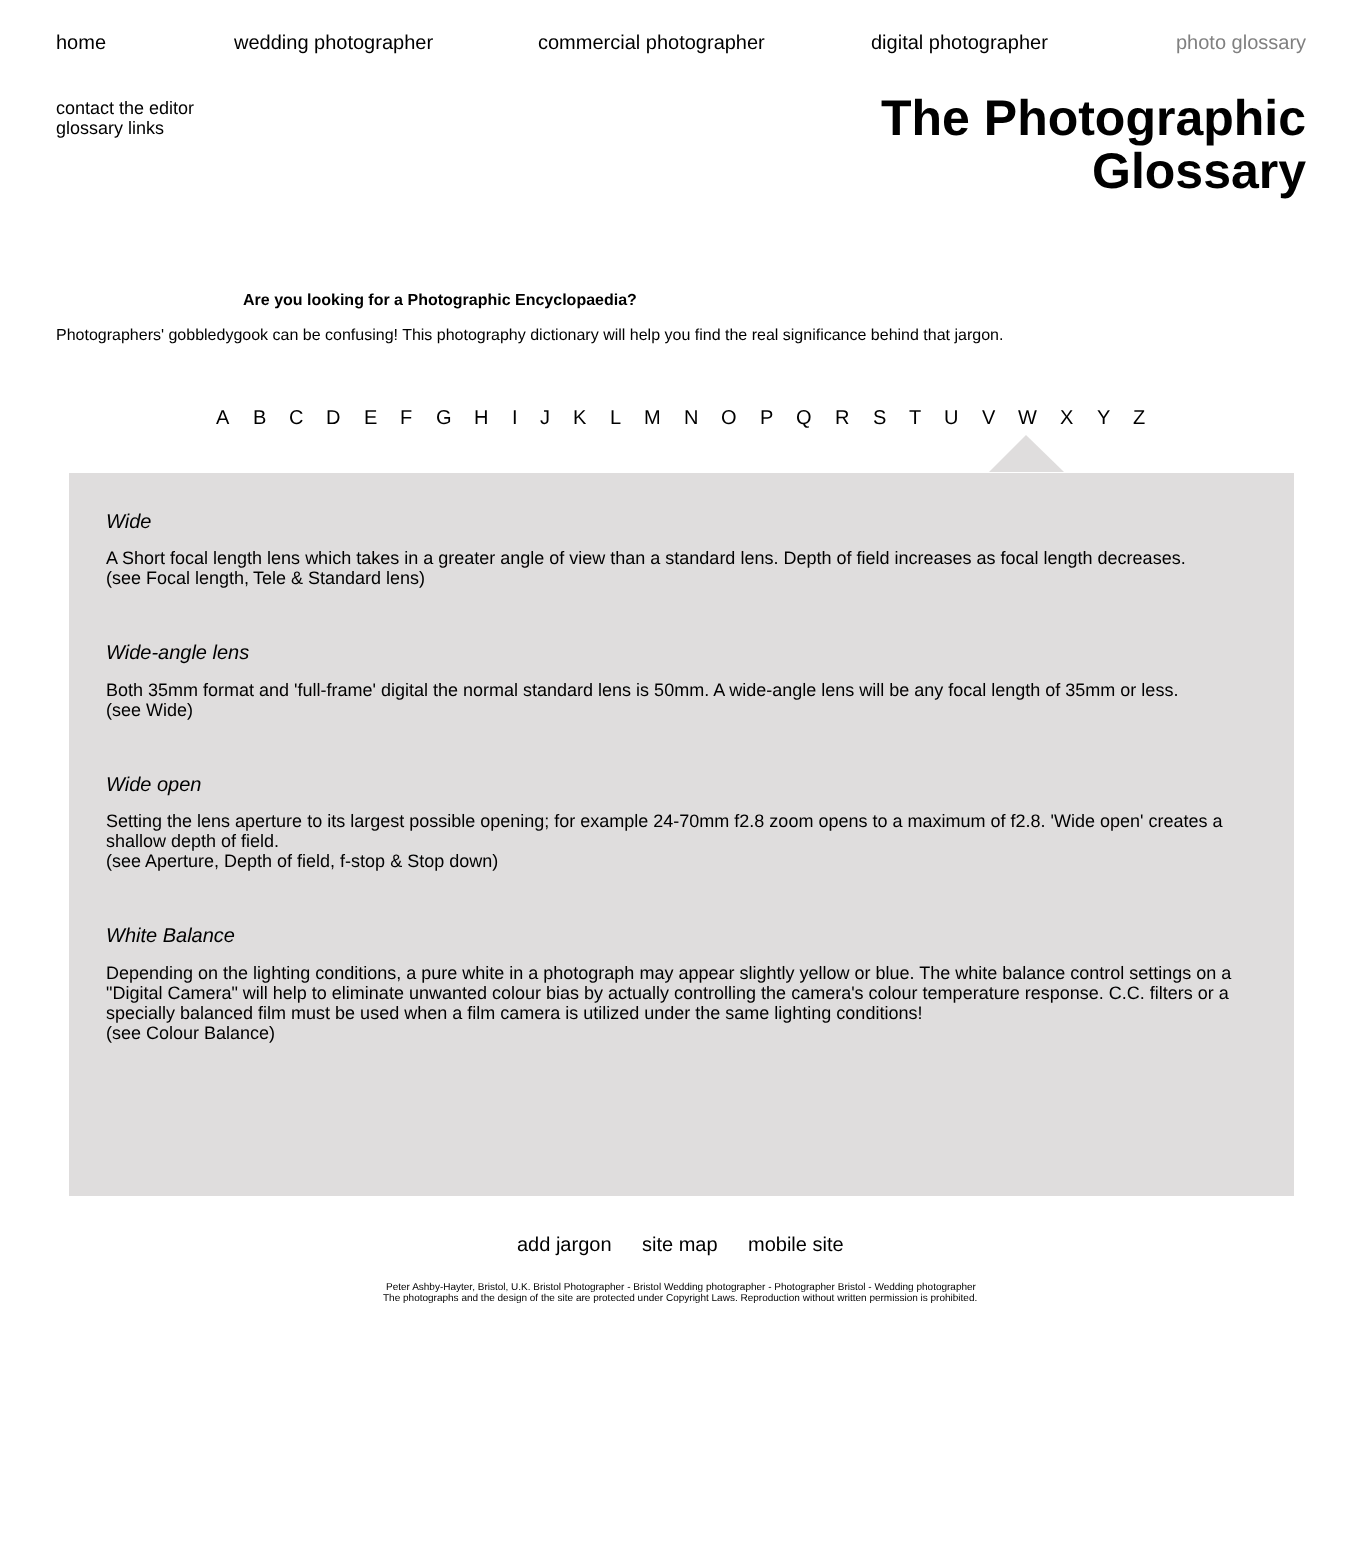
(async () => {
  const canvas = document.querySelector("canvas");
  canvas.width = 1361;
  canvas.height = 1544;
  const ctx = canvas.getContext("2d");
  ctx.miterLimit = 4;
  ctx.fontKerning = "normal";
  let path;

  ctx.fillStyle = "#ffffff";
  ctx.fillRect(0, 0, 1361, 1544);
  ctx.fillStyle = "#dfdddd";
  path = new Path2D("M1064 472H989L1026 435Z");
  ctx.fill(path);
  ctx.fillRect(69, 473, 1225, 723);
  ctx.font = "20px Liberation Sans";
  ctx.fillStyle = "#000000";
  for (const [text, x, y] of [
    ["home", 56, 49],
    ["wedding photographer", 234, 49],
    ["commercial photographer", 538, 49],
    ["digital photographer", 871, 49],
  ]) {
    ctx.fillText(text, x, y);
  }
  ctx.fillStyle = "#808080";
  ctx.fillText("photo glossary", 1176, 49);
  ctx.font = "18px Liberation Sans";
  ctx.fillStyle = "#000000";
  ctx.fillText("contact the editor", 56, 114);
  ctx.fillText("glossary links", 56, 134);
  ctx.font = "bold 50px Liberation Sans";
  ctx.fillText("The Photographic", 881, 135);
  ctx.fillText("Glossary", 1092, 188);
  ctx.font = "bold 16px Liberation Sans";
  ctx.fillText("Are you looking for a Photographic Encyclopaedia?", 243, 305);
  ctx.font = "16px Liberation Sans";
  ctx.fillText("Photographers' gobbledygook can be confusing! This photography dictionary will help you find the real significance behind that jargon.", 56, 340);
  ctx.font = "20px Liberation Sans";
  for (const [text, x, y] of [
    ["A", 216, 424],
    ["B", 253, 424],
    ["C", 289, 424],
    ["D", 326, 424],
    ["E", 364, 424],
    ["F", 400, 424],
    ["G", 436, 424],
    ["H", 474, 424],
    ["I", 512, 424],
    ["J", 540, 424],
    ["K", 573, 424],
    ["L", 610, 424],
    ["M", 644, 424],
    ["N", 684, 424],
    ["O", 721, 424],
    ["P", 760, 424],
    ["Q", 796, 424],
    ["R", 835, 424],
    ["S", 873, 424],
    ["T", 909, 424],
    ["U", 944, 424],
    ["V", 982, 424],
    ["W", 1018, 424],
    ["X", 1060, 424],
    ["Y", 1097, 424],
    ["Z", 1133, 424],
  ]) {
    ctx.fillText(text, x, y);
  }
  ctx.font = "italic 20px Liberation Sans";
  ctx.fillText("Wide", 106, 528);
  ctx.font = "18px Liberation Sans";
  for (const [text, x, y] of [
    ["A Short focal length lens which takes in a greater angle of view than a standard lens. Depth of field increases as focal length decreases.", 106, 564],
    ["(see Focal length,", 106, 584],
    ["Tele & Standard lens)", 253, 584],
  ]) {
    ctx.fillText(text, x, y);
  }
  ctx.font = "italic 20px Liberation Sans";
  ctx.fillText("Wide-angle lens", 106, 659);
  ctx.font = "18px Liberation Sans";
  ctx.fillText("Both 35mm format and 'full-frame' digital the normal standard lens is 50mm. A wide-angle lens will be any focal length of 35mm or less.", 106, 696);
  ctx.fillText("(see Wide)", 106, 716);
  ctx.font = "italic 20px Liberation Sans";
  ctx.fillText("Wide open", 106, 791);
  ctx.font = "18px Liberation Sans";
  for (const [text, x, y] of [
    ["Setting the lens aperture to its largest possible opening; for example 24-70mm f2.8 zoom opens to a maximum of f2.8. 'Wide open' creates a", 106, 827],
    ["shallow depth of field.", 106, 847],
    ["(see", 106, 867],
    ["Aperture, Depth of field, f-stop & Stop down)", 145, 867],
  ]) {
    ctx.fillText(text, x, y);
  }
  ctx.font = "italic 20px Liberation Sans";
  ctx.fillText("White Balance", 106, 942);
  ctx.font = "18px Liberation Sans";
  for (const [text, x, y] of [
    ["Depending on the lighting conditions, a pure white in a photograph may appear slightly yellow or blue. The white balance control settings on a", 106, 979],
    ["\"Digital Camera\" will help to eliminate unwanted colour bias by actually controlling the camera's colour temperature response. C.C. filters or a", 106, 999],
    ["specially balanced film must be used when a film camera is utilized under the same lighting conditions!", 106, 1019],
    ["(see Colour Balance)", 106, 1039],
  ]) {
    ctx.fillText(text, x, y);
  }
  ctx.font = "20px Liberation Sans";
  for (const [text, x, y] of [
    ["add jargon", 517, 1251],
    ["site map", 642, 1251],
    ["mobile site", 748, 1251],
  ]) {
    ctx.fillText(text, x, y);
  }
  ctx.font = "10px Liberation Sans";
  ctx.fillText("Peter Ashby-Hayter, Bristol, U.K. Bristol Photographer - Bristol Wedding photographer - Photographer Bristol - Wedding photographer", 386, 1290);
  ctx.fillText("The photographs and the design of the site are protected under Copyright Laws. Reproduction without written permission is prohibited.", 383, 1301);
})();
